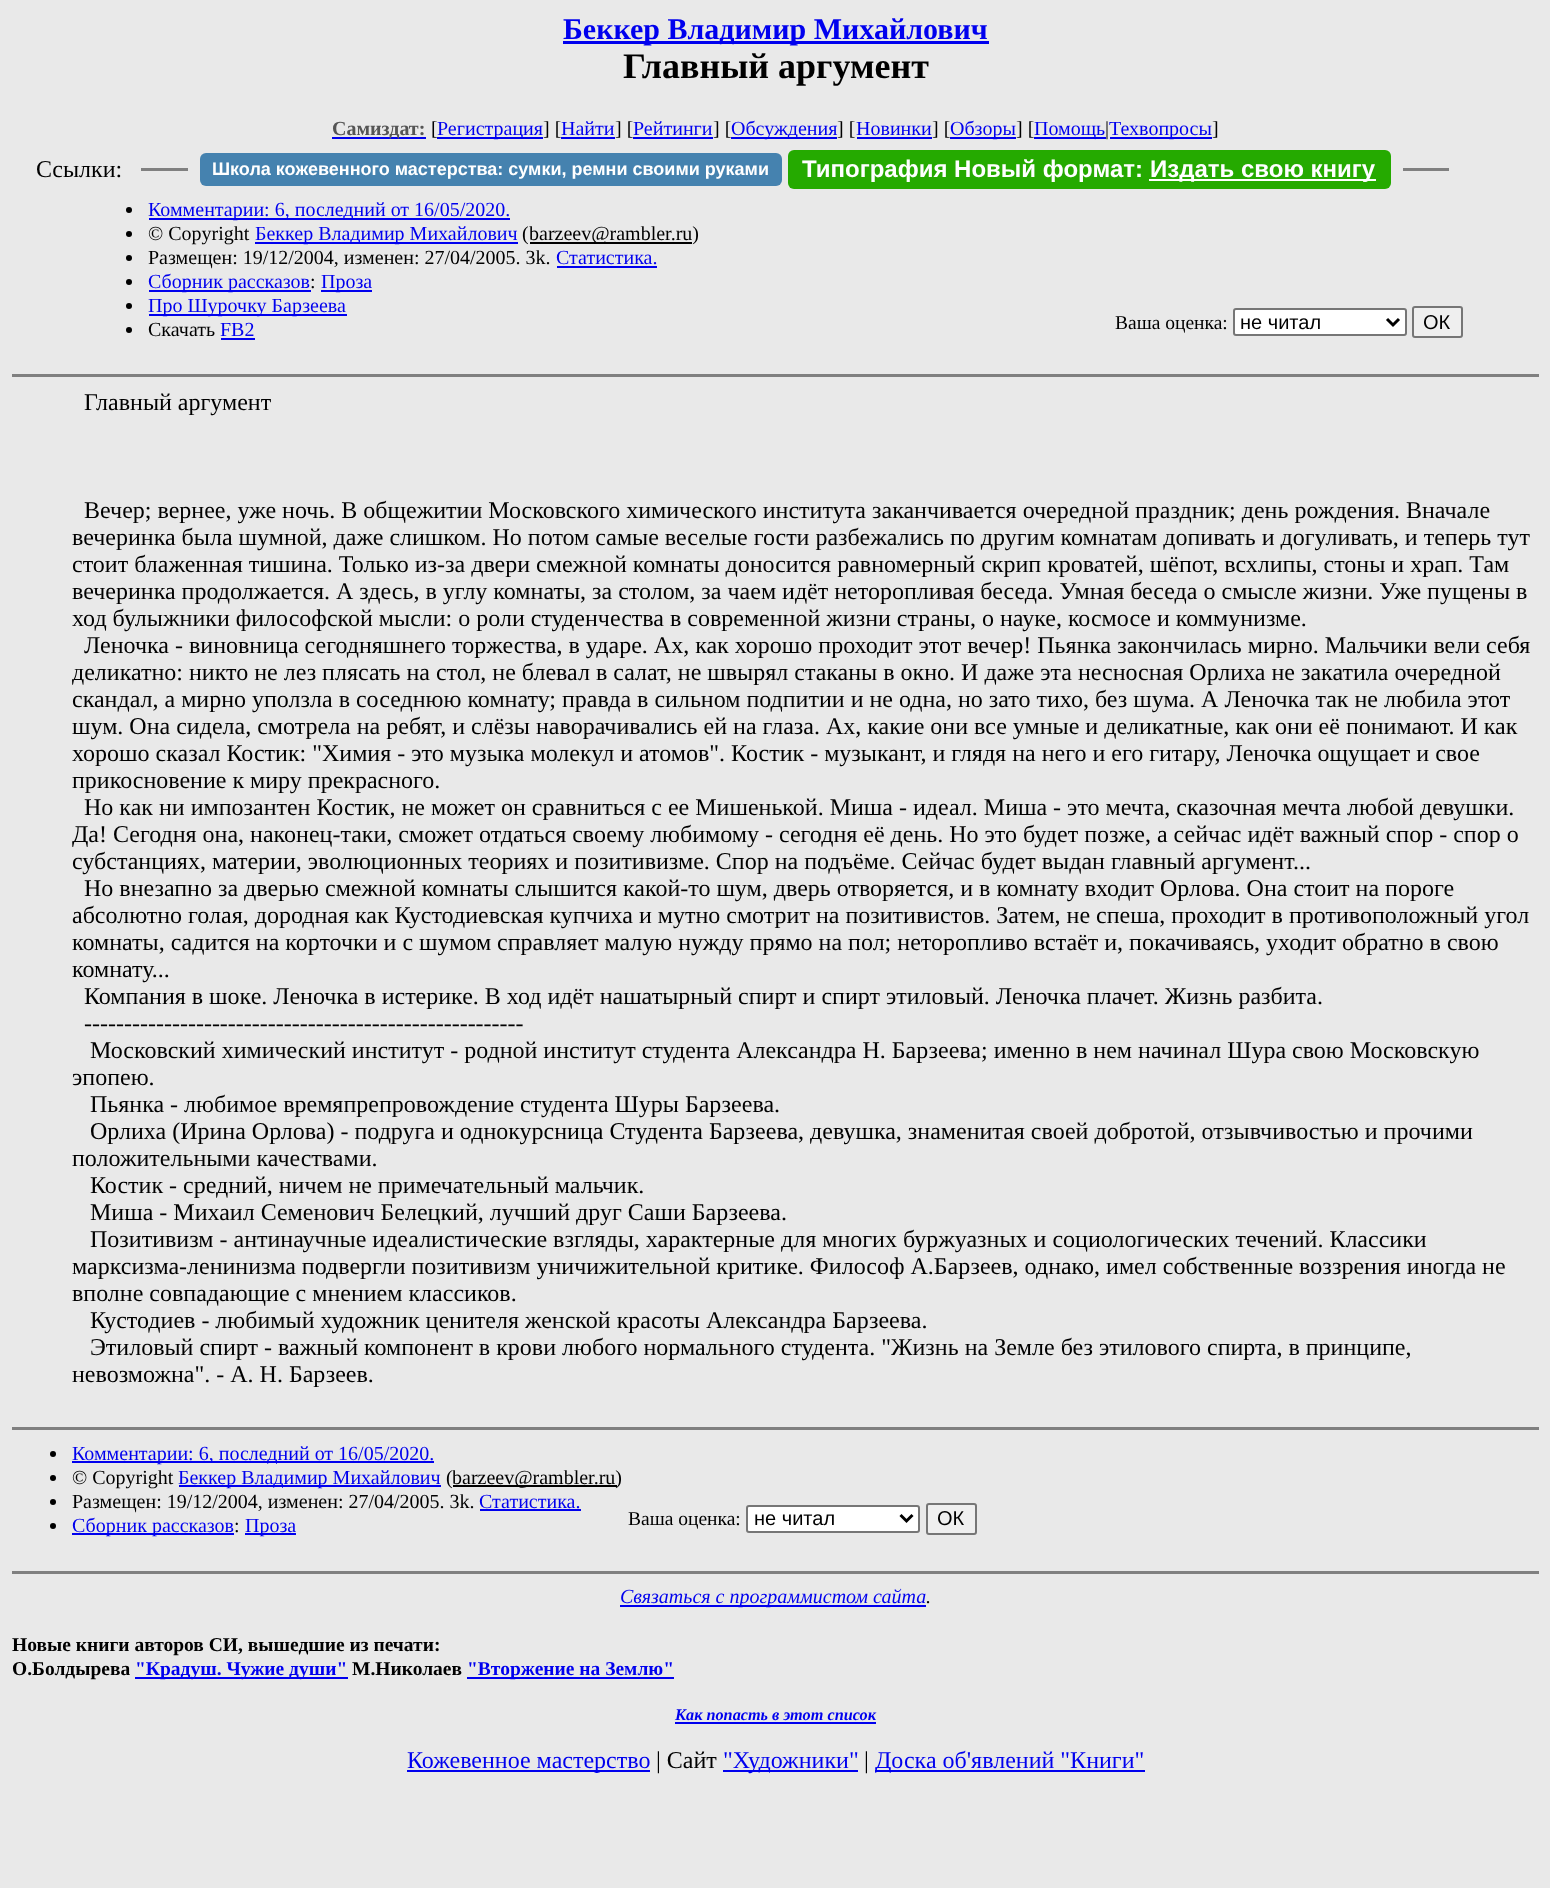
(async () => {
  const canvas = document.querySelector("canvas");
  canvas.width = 1550;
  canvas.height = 1888;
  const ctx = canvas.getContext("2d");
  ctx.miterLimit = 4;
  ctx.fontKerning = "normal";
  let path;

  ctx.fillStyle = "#e9e9e9";
  ctx.fillRect(0, 0, 1550, 1888);
  for (const [x, y, w, h, color] of [
    [563, 41, 426, 3, "#0000ee"],
    [332, 137, 94, 2, "#0000ee"],
    [437, 137, 106, 2, "#0000ee"],
    [561, 137, 54, 2, "#0000ee"],
    [633, 137, 80, 2, "#0000ee"],
    [731, 137, 106, 2, "#0000ee"],
    [857, 137, 75, 2, "#0000ee"],
    [950, 137, 66, 2, "#0000ee"],
    [1034, 137, 72, 2, "#0000ee"],
    [1110, 137, 102, 2, "#0000ee"],
    [141, 168, 47, 3, "#808080"],
  ]) {
    ctx.fillStyle = color;
    ctx.fillRect(x, y, w, h);
  }
  ctx.fillStyle = "#4582af";
  ctx.beginPath();
  ctx.roundRect(200, 153, 582, 33, 6);
  ctx.fill();
  ctx.fillStyle = "#25aa00";
  ctx.beginPath();
  ctx.roundRect(788, 150, 603, 39, 6);
  ctx.fill();
  ctx.fillStyle = "#ffffff";
  ctx.fillRect(1149, 179, 227, 2);
  ctx.fillStyle = "#808080";
  ctx.fillRect(1403, 168, 46, 3);
  ctx.fillStyle = "#000000";
  ctx.beginPath();
  ctx.arc(129, 210, 3, 0, Math.PI * 2);
  ctx.fill();
  ctx.fillStyle = "#0000ee";
  ctx.fillRect(149, 218, 361, 2);
  ctx.fillStyle = "#000000";
  ctx.beginPath();
  ctx.arc(129, 234, 3, 0, Math.PI * 2);
  ctx.fill();
  ctx.fillStyle = "#0000ee";
  ctx.fillRect(255, 242, 263, 2);
  ctx.fillStyle = "#000000";
  ctx.fillRect(530, 242, 162, 2);
  ctx.beginPath();
  ctx.arc(129, 258, 3, 0, Math.PI * 2);
  ctx.fill();
  ctx.fillStyle = "#0000ee";
  ctx.fillRect(557, 266, 100, 2);
  ctx.fillStyle = "#000000";
  ctx.beginPath();
  ctx.arc(129, 282, 3, 0, Math.PI * 2);
  ctx.fill();
  ctx.fillStyle = "#0000ee";
  ctx.fillRect(149, 290, 162, 2);
  ctx.fillRect(321, 290, 51, 2);
  ctx.fillStyle = "#000000";
  ctx.beginPath();
  ctx.arc(129, 306, 3, 0, Math.PI * 2);
  ctx.fill();
  ctx.fillStyle = "#0000ee";
  ctx.fillRect(149, 314, 198, 2);
  ctx.fillStyle = "#000000";
  ctx.beginPath();
  ctx.arc(129, 330, 3, 0, Math.PI * 2);
  ctx.fill();
  ctx.fillStyle = "#0000ee";
  ctx.fillRect(221, 338, 34, 2);
  ctx.fillStyle = "#ffffff";
  ctx.beginPath();
  ctx.roundRect(1234, 309, 172, 26, 2);
  ctx.fill();
  ctx.strokeStyle = "#767676";
  ctx.lineWidth = 2;
  ctx.stroke();
  path = new Path2D("M1387 319L1393 325L1399 319");
  ctx.strokeStyle = "#000000";
  ctx.lineWidth = 3;
  ctx.stroke(path);
  ctx.fillStyle = "#efefef";
  ctx.beginPath();
  ctx.roundRect(1413, 307, 49, 30, 2);
  ctx.fill();
  ctx.strokeStyle = "#767676";
  ctx.lineWidth = 2;
  ctx.stroke();
  ctx.fillStyle = "#808080";
  ctx.fillRect(12, 374, 1527, 3);
  ctx.fillRect(12, 1427, 1527, 3);
  ctx.fillStyle = "#000000";
  ctx.beginPath();
  ctx.arc(53, 1454, 3, 0, Math.PI * 2);
  ctx.fill();
  ctx.fillStyle = "#0000ee";
  ctx.fillRect(72, 1461, 362, 2);
  ctx.fillStyle = "#000000";
  ctx.beginPath();
  ctx.arc(53, 1478, 3, 0, Math.PI * 2);
  ctx.fill();
  ctx.fillStyle = "#0000ee";
  ctx.fillRect(179, 1485, 262, 2);
  ctx.fillStyle = "#000000";
  ctx.fillRect(453, 1485, 164, 2);
  ctx.beginPath();
  ctx.arc(53, 1502, 3, 0, Math.PI * 2);
  ctx.fill();
  ctx.fillStyle = "#0000ee";
  ctx.fillRect(480, 1509, 101, 2);
  ctx.fillStyle = "#000000";
  ctx.beginPath();
  ctx.arc(53, 1526, 3, 0, Math.PI * 2);
  ctx.fill();
  ctx.fillStyle = "#0000ee";
  ctx.fillRect(72, 1533, 162, 2);
  ctx.fillRect(245, 1533, 51, 2);
  ctx.fillStyle = "#ffffff";
  ctx.beginPath();
  ctx.roundRect(747, 1506, 172, 26, 2);
  ctx.fill();
  ctx.stroke();
  path = new Path2D("M900.5 1515L906.5 1521L912.5 1515");
  ctx.strokeStyle = "#000000";
  ctx.lineWidth = 3;
  ctx.stroke(path);
  ctx.fillStyle = "#efefef";
  ctx.beginPath();
  ctx.roundRect(927, 1504, 49, 30, 2);
  ctx.fill();
  ctx.strokeStyle = "#767676";
  ctx.lineWidth = 2;
  ctx.stroke();
  for (const [x, y, w, h, color] of [
    [12, 1571, 1527, 3, "#808080"],
    [620, 1605, 306, 2, "#0000ee"],
    [135, 1677, 213, 2, "#0000ee"],
    [467, 1677, 207, 2, "#0000ee"],
    [675, 1722, 201, 2, "#0000ee"],
    [407, 1770, 243, 2, "#0000ee"],
    [723, 1770, 135, 2, "#0000ee"],
    [875, 1770, 270, 2, "#0000ee"],
  ]) {
    ctx.fillStyle = color;
    ctx.fillRect(x, y, w, h);
  }
  ctx.font = "bold 30px Liberation Serif";
  ctx.fillText("Беккер Владимир Михайлович", 563, 39);
  ctx.font = "bold 36px Liberation Serif";
  ctx.fillStyle = "#000000";
  ctx.fillText("Главный аргумент", 623, 78);
  ctx.font = "bold 20px Liberation Serif";
  ctx.fillStyle = "#555555";
  ctx.fillText("Самиздат:", 332, 135);
  ctx.font = "20px Liberation Serif";
  ctx.fillStyle = "#000000";
  ctx.fillText("[", 431, 135);
  ctx.fillStyle = "#0000ee";
  ctx.fillText("Регистрация", 437, 135);
  ctx.fillStyle = "#000000";
  ctx.fillText("] [", 543, 135);
  ctx.fillStyle = "#0000ee";
  ctx.fillText("Найти", 561, 135);
  ctx.fillStyle = "#000000";
  ctx.fillText("] [", 615, 135);
  ctx.fillStyle = "#0000ee";
  ctx.fillText("Рейтинги", 633, 135);
  ctx.fillStyle = "#000000";
  ctx.fillText("] [", 713, 135);
  ctx.fillStyle = "#0000ee";
  ctx.fillText("Обсуждения", 731, 135);
  ctx.fillStyle = "#000000";
  ctx.fillText("] [", 837, 135);
  ctx.fillStyle = "#0000ee";
  ctx.fillText("Новинки", 856, 135);
  ctx.fillStyle = "#000000";
  ctx.fillText("] [", 932, 135);
  ctx.fillStyle = "#0000ee";
  ctx.fillText("Обзоры", 950, 135);
  ctx.fillStyle = "#000000";
  ctx.fillText("] [", 1016, 135);
  ctx.fillStyle = "#0000ee";
  ctx.fillText("Помощь", 1034, 135);
  ctx.fillStyle = "#000000";
  ctx.fillText("|", 1105, 135);
  ctx.fillStyle = "#0000ee";
  ctx.fillText("Техвопросы", 1109, 135);
  ctx.fillStyle = "#000000";
  ctx.fillText("]", 1212, 135);
  ctx.font = "24px Liberation Serif";
  ctx.fillText("Ссылки:", 36, 177);
  ctx.font = "bold 18px Liberation Sans";
  ctx.fillStyle = "#ffffff";
  ctx.fillText("Школа кожевенного мастерства: сумки, ремни своими руками", 212, 175);
  ctx.font = "bold 24px Liberation Sans";
  ctx.fillText("Типография Новый формат:", 802, 177);
  ctx.fillText("Издать свою книгу", 1150, 177);
  ctx.font = "20px Liberation Serif";
  ctx.fillStyle = "#0000ee";
  ctx.fillText("Комментарии: 6, последний от 16/05/2020.", 148, 216);
  ctx.fillStyle = "#000000";
  ctx.fillText("© Copyright", 148, 240);
  ctx.fillStyle = "#0000ee";
  ctx.fillText("Беккер Владимир Михайлович", 255, 240);
  ctx.fillStyle = "#000000";
  for (const [text, x, y] of [
    ["(", 522, 240],
    ["barzeev@rambler.ru)", 529, 240],
    ["Размещен: 19/12/2004, изменен: 27/04/2005. 3k.", 148, 264],
  ]) {
    ctx.fillText(text, x, y);
  }
  ctx.fillStyle = "#0000ee";
  ctx.fillText("Статистика.", 556, 264);
  ctx.fillText("Сборник рассказов", 148, 288);
  ctx.fillStyle = "#000000";
  ctx.fillText(":", 310, 288);
  ctx.fillStyle = "#0000ee";
  ctx.fillText("Проза", 321, 288);
  ctx.fillText("Про Шурочку Барзеева", 148, 312);
  ctx.fillStyle = "#000000";
  ctx.fillText("Скачать", 148, 336);
  ctx.fillStyle = "#0000ee";
  ctx.fillText("FB2", 220, 336);
  ctx.font = "19.5px Liberation Serif";
  ctx.fillStyle = "#000000";
  ctx.fillText("Ваша оценка:", 1115, 329);
  ctx.font = "20px Liberation Sans";
  ctx.fillText("не читал", 1240, 329);
  ctx.fillText("ОК", 1423, 329);
  ctx.font = "24px Liberation Serif";
  for (const [text, x, y] of [
    ["Главный аргумент", 84, 410],
    ["Вечер; вернее, уже ночь. В общежитии Московского химического института заканчивается очередной праздник; день рождения. Вначале", 84, 518],
    ["вечеринка была шумной, даже слишком. Но потом самые веселые гости разбежались по другим комнатам допивать и догуливать, и теперь тут", 72, 545],
    ["стоит блаженная тишина. Только из-за двери смежной комнаты доносится равномерный скрип кроватей, шёпот, всхлипы, стоны и храп. Там", 72, 572],
    ["вечеринка продолжается. А здесь, в углу комнаты, за столом, за чаем идёт неторопливая беседа. Умная беседа о смысле жизни. Уже пущены в", 72, 599],
    ["ход булыжники философской мысли: о роли студенчества в современной жизни страны, о науке, космосе и коммунизме.", 72, 626],
    ["Леночка - виновница сегодняшнего торжества, в ударе. Ах, как хорошо проходит этот вечер! Пьянка закончилась мирно. Мальчики вели себя", 84, 653],
    ["деликатно: никто не лез плясать на стол, не блевал в салат, не швырял стаканы в окно. И даже эта несносная Орлиха не закатила очередной", 72, 680],
    ["скандал, а мирно уползла в соседнюю комнату; правда в сильном подпитии и не одна, но зато тихо, без шума. А Леночка так не любила этот", 72, 707],
    ["шум. Она сидела, смотрела на ребят, и слёзы наворачивались ей на глаза. Ах, какие они все умные и деликатные, как они её понимают. И как", 72, 734],
    ["хорошо сказал Костик: \"Химия - это музыка молекул и атомов\". Костик - музыкант, и глядя на него и его гитару, Леночка ощущает и свое", 72, 761],
    ["прикосновение к миру прекрасного.", 72, 788],
    ["Но как ни импозантен Костик, не может он сравниться с ее Мишенькой. Миша - идеал. Миша - это мечта, сказочная мечта любой девушки.", 84, 815],
    ["Да! Сегодня она, наконец-таки, сможет отдаться своему любимому - сегодня её день. Но это будет позже, а сейчас идёт важный спор - спор о", 72, 842],
    ["субстанциях, материи, эволюционных теориях и позитивизме. Спор на подъёме. Сейчас будет выдан главный аргумент...", 72, 869],
    ["Но внезапно за дверью смежной комнаты слышится какой-то шум, дверь отворяется, и в комнату входит Орлова. Она стоит на пороге", 84, 896],
    ["абсолютно голая, дородная как Кустодиевская купчиха и мутно смотрит на позитивистов. Затем, не спеша, проходит в противоположный угол", 72, 923],
    ["комнаты, садится на корточки и с шумом справляет малую нужду прямо на пол; неторопливо встаёт и, покачиваясь, уходит обратно в свою", 72, 950],
    ["комнату...", 72, 977],
    ["Компания в шоке. Леночка в истерике. В ход идёт нашатырный спирт и спирт этиловый. Леночка плачет. Жизнь разбита.", 84, 1004],
    ["-------------------------------------------------------", 84, 1031],
    ["Московский химический институт - родной институт студента Александра Н. Барзеева; именно в нем начинал Шура свою Московскую", 90, 1058],
    ["эпопею.", 72, 1085],
    ["Пьянка - любимое времяпрепровождение студента Шуры Барзеева.", 90, 1112],
    ["Орлиха (Ирина Орлова) - подруга и однокурсница Студента Барзеева, девушка, знаменитая своей добротой, отзывчивостью и прочими", 90, 1139],
    ["положительными качествами.", 72, 1166],
    ["Костик - средний, ничем не примечательный мальчик.", 90, 1193],
    ["Миша - Михаил Семенович Белецкий, лучший друг Саши Барзеева.", 90, 1220],
    ["Позитивизм - антинаучные идеалистические взгляды, характерные для многих буржуазных и социологических течений. Классики", 90, 1247],
    ["марксизма-ленинизма подвергли позитивизм уничижительной критике. Философ А.Барзеев, однако, имел собственные воззрения иногда не", 72, 1274],
    ["вполне совпадающие с мнением классиков.", 72, 1301],
    ["Кустодиев - любимый художник ценителя женской красоты Александра Барзеева.", 90, 1328],
    ["Этиловый спирт - важный компонент в крови любого нормального студента. \"Жизнь на Земле без этилового спирта, в принципе,", 90, 1355],
    ["невозможна\". - А. Н. Барзеев.", 72, 1382],
  ]) {
    ctx.fillText(text, x, y);
  }
  ctx.font = "20px Liberation Serif";
  ctx.fillStyle = "#0000ee";
  ctx.fillText("Комментарии: 6, последний от 16/05/2020.", 72, 1460);
  ctx.fillStyle = "#000000";
  ctx.fillText("© Copyright", 72, 1484);
  ctx.fillStyle = "#0000ee";
  ctx.fillText("Беккер Владимир Михайлович", 178, 1484);
  ctx.fillStyle = "#000000";
  for (const [text, x, y] of [
    ["(", 446, 1484],
    ["barzeev@rambler.ru)", 452, 1484],
    ["Размещен: 19/12/2004, изменен: 27/04/2005. 3k.", 72, 1508],
  ]) {
    ctx.fillText(text, x, y);
  }
  ctx.fillStyle = "#0000ee";
  ctx.fillText("Статистика.", 479, 1508);
  ctx.fillText("Сборник рассказов", 72, 1532);
  ctx.fillStyle = "#000000";
  ctx.fillText(":", 234, 1532);
  ctx.fillStyle = "#0000ee";
  ctx.fillText("Проза", 245, 1532);
  ctx.font = "19.5px Liberation Serif";
  ctx.fillStyle = "#000000";
  ctx.fillText("Ваша оценка:", 628, 1525);
  ctx.font = "20px Liberation Sans";
  ctx.fillText("не читал", 754, 1525);
  ctx.fillText("ОК", 937, 1525);
  ctx.font = "italic 20px Liberation Serif";
  ctx.fillStyle = "#0000ee";
  ctx.fillText("Связаться с программистом сайта", 620, 1603);
  ctx.fillStyle = "#000000";
  ctx.fillText(".", 926, 1603);
  ctx.font = "bold 19.5px Liberation Serif";
  ctx.fillText("Новые книги авторов СИ, вышедшие из печати:", 12, 1651);
  ctx.fillText("О.Болдырева", 12, 1675);
  ctx.fillStyle = "#0000ee";
  ctx.fillText("\"Крадуш. Чужие души\"", 135, 1675);
  ctx.fillStyle = "#000000";
  ctx.fillText("М.Николаев", 352, 1675);
  ctx.fillStyle = "#0000ee";
  ctx.fillText("\"Вторжение на Землю\"", 467, 1675);
  ctx.font = "italic bold 16.25px Liberation Serif";
  ctx.fillText("Как попасть в этoт список", 675, 1720);
  ctx.font = "24px Liberation Serif";
  ctx.fillText("Кожевенное мастерство", 407, 1768);
  ctx.fillStyle = "#000000";
  ctx.fillText("| Сайт", 656, 1768);
  ctx.fillStyle = "#0000ee";
  ctx.fillText("\"Художники\"", 723, 1768);
  ctx.fillStyle = "#000000";
  ctx.fillText("|", 864, 1768);
  ctx.fillStyle = "#0000ee";
  ctx.fillText("Доска об'явлений \"Книги\"", 875, 1768);
})();
